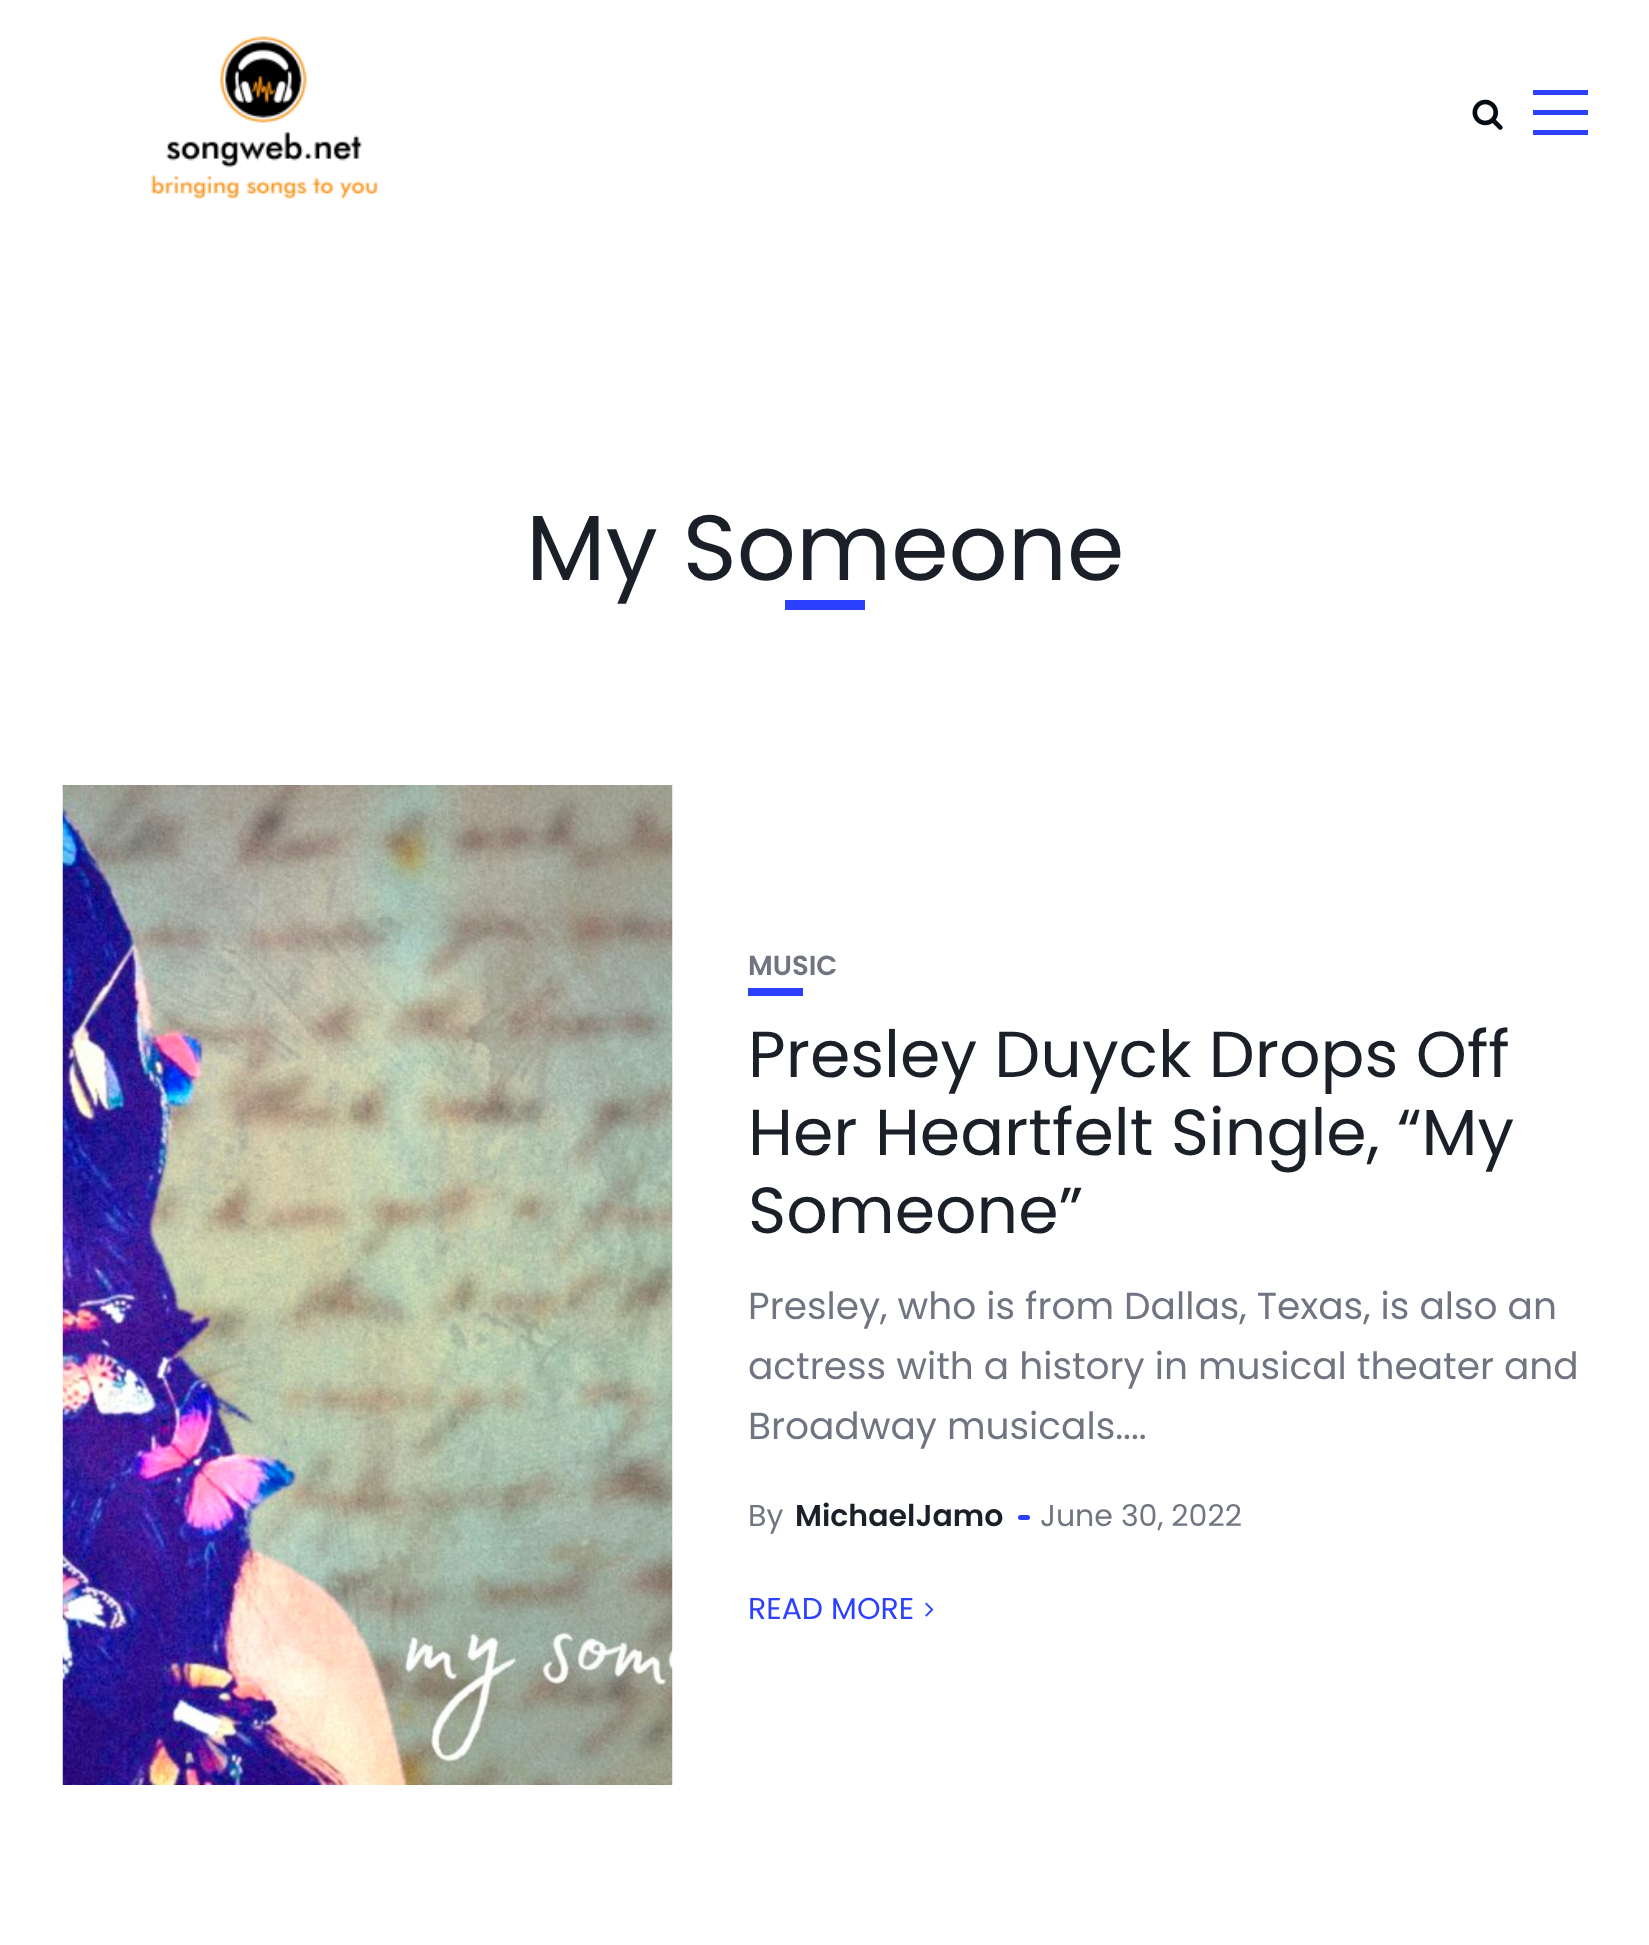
(async () => {
  const canvas = document.querySelector("canvas");
  canvas.width = 1649;
  canvas.height = 1945;
  const ctx = canvas.getContext("2d");
  ctx.miterLimit = 4;
  ctx.fontKerning = "normal";
  async function loadImage(src) {
    const img = new Image();
    img.src = src;
    await img.decode();
    return img;
  }

  ctx.fillStyle = "#ffffff";
  ctx.fillRect(0, 0, 1649, 1945);
  ctx.drawImage(await loadImage("img/1.png"), 151, 36, 228, 163);
  ctx.drawImage(await loadImage("img/2.png"), 1472, 99, 31, 31);
  for (const [x, y, w, h, color] of [
    [1533, 90, 55, 5, "#2c40ff"],
    [1533, 110, 55, 5, "#2c40ff"],
    [1533, 130, 55, 5, "#2c40ff"],
    [785, 600, 80, 10, "#2c40ff"],
  ]) {
    ctx.fillStyle = color;
    ctx.fillRect(x, y, w, h);
  }
  ctx.drawImage(await loadImage("img/3.png"), 62, 785, 611, 1000);
  ctx.fillRect(748, 988, 55, 8);
  ctx.beginPath();
  ctx.roundRect(1018, 1515, 12, 5, 2.5);
  ctx.fill();
  ctx.drawImage(await loadImage("img/4.png"), 925, 1602, 9, 15);
  ctx.font = "92.5px Poppins";
  ctx.fillStyle = "#1a1f28";
  ctx.fillText("My Someone", 526, 580);
  ctx.font = "600 27.5px Poppins";
  ctx.fillStyle = "#717582";
  ctx.fillText("MUSIC", 748, 975);
  ctx.font = "65px Poppins";
  ctx.fillStyle = "#1a1f28";
  for (const [text, x, y] of [
    ["Presley Duyck Drops Off", 748, 1077],
    ["Her Heartfelt Single, “My", 748, 1155],
    ["Someone”", 748, 1233],
  ]) {
    ctx.fillText(text, x, y);
  }
  ctx.font = "37.5px Poppins";
  ctx.fillStyle = "#717582";
  for (const [text, x, y] of [
    ["Presley, who is from Dallas, Texas, is also an", 748, 1319],
    ["actress with a history in musical theater and", 748, 1379],
    ["Broadway musicals....", 748, 1439],
  ]) {
    ctx.fillText(text, x, y);
  }
  ctx.font = "30px Poppins";
  ctx.fillText("By", 748, 1526);
  ctx.font = "600 30px Poppins";
  ctx.fillStyle = "#1a1f28";
  ctx.fillText("MichaelJamo", 795, 1526);
  ctx.font = "30px Poppins";
  ctx.fillStyle = "#717582";
  ctx.fillText("June 30, 2022", 1040, 1526);
  ctx.fillStyle = "#2c40ff";
  ctx.fillText("READ MORE", 748, 1619);
})();
